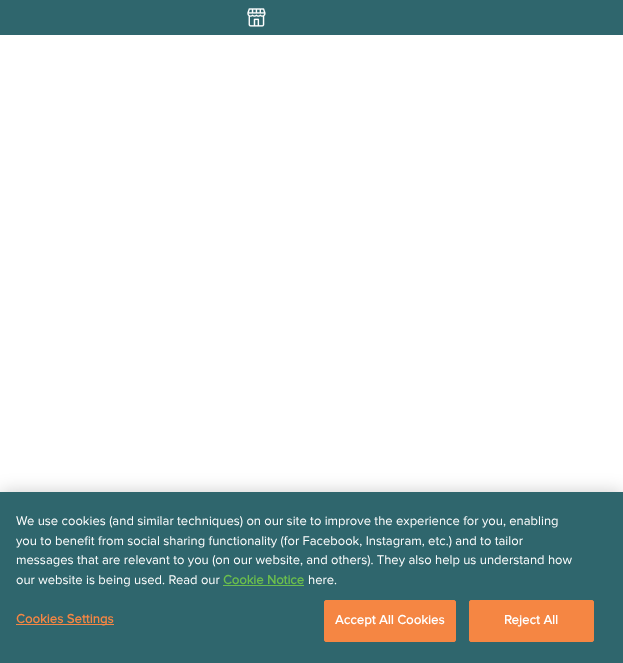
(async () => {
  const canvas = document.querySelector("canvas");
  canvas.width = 623;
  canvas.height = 663;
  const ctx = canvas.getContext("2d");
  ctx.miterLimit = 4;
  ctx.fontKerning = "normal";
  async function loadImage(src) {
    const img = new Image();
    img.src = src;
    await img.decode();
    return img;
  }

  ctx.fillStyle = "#ffffff";
  ctx.fillRect(0, 0, 623, 663);
  ctx.fillStyle = "#2f666d";
  ctx.fillRect(0, 0, 623, 35);
  ctx.drawImage(await loadImage("img/1.png"), 247, 8, 19, 19);
  ctx.fillStyle = "rgba(0, 0, 0, 0.2)";
  ctx.filter = "blur(9px)";
  ctx.beginPath();
  ctx.rect(0, 492, 623, 171);
  ctx.fill();
  ctx.filter = "none";
  for (const [x, y, w, h, color] of [
    [0, 492, 623, 171, "#2f666d"],
    [223, 585, 81, 1, "#6bbe4d"],
    [16, 624, 98, 1, "#f58643"],
  ]) {
    ctx.fillStyle = color;
    ctx.fillRect(x, y, w, h);
  }
  ctx.beginPath();
  ctx.roundRect(324.5, 600.5, 131, 41, 1.5);
  ctx.fill();
  ctx.strokeStyle = "#f58643";
  ctx.stroke();
  ctx.beginPath();
  ctx.roundRect(469.5, 600.5, 124, 41, 1.5);
  ctx.fill();
  ctx.stroke();
  ctx.font = "13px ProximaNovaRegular";
  ctx.fillStyle = "#ffffff";
  for (const [text, x, y] of [
    ["We use cookies (and similar techniques) on our site to improve the experience for you, enabling", 16, 525],
    ["you to benefit from social sharing functionality (for Facebook, Instagram, etc.) and to tailor", 16, 545],
    ["messages that are relevant to you (on our website, and others). They also help us understand how", 16, 564],
    ["our website is being used. Read our", 16, 584],
  ]) {
    ctx.fillText(text, x, y);
  }
  ctx.font = "bold 13px ProximaNovaRegular";
  ctx.fillStyle = "#6bbe4d";
  ctx.fillText("Cookie Notice", 223, 584);
  ctx.font = "13px ProximaNovaRegular";
  ctx.fillStyle = "#ffffff";
  ctx.fillText("here.", 308, 584);
  ctx.letterSpacing = "0.1px";
  ctx.font = "bold 13px ProximaNovaRegular";
  ctx.fillStyle = "#f58643";
  ctx.fillText("Cookies Settings", 16, 623);
  ctx.fillStyle = "#ffffff";
  ctx.fillText("Accept All Cookies", 335, 624);
  ctx.fillText("Reject All", 504, 624);
})();
